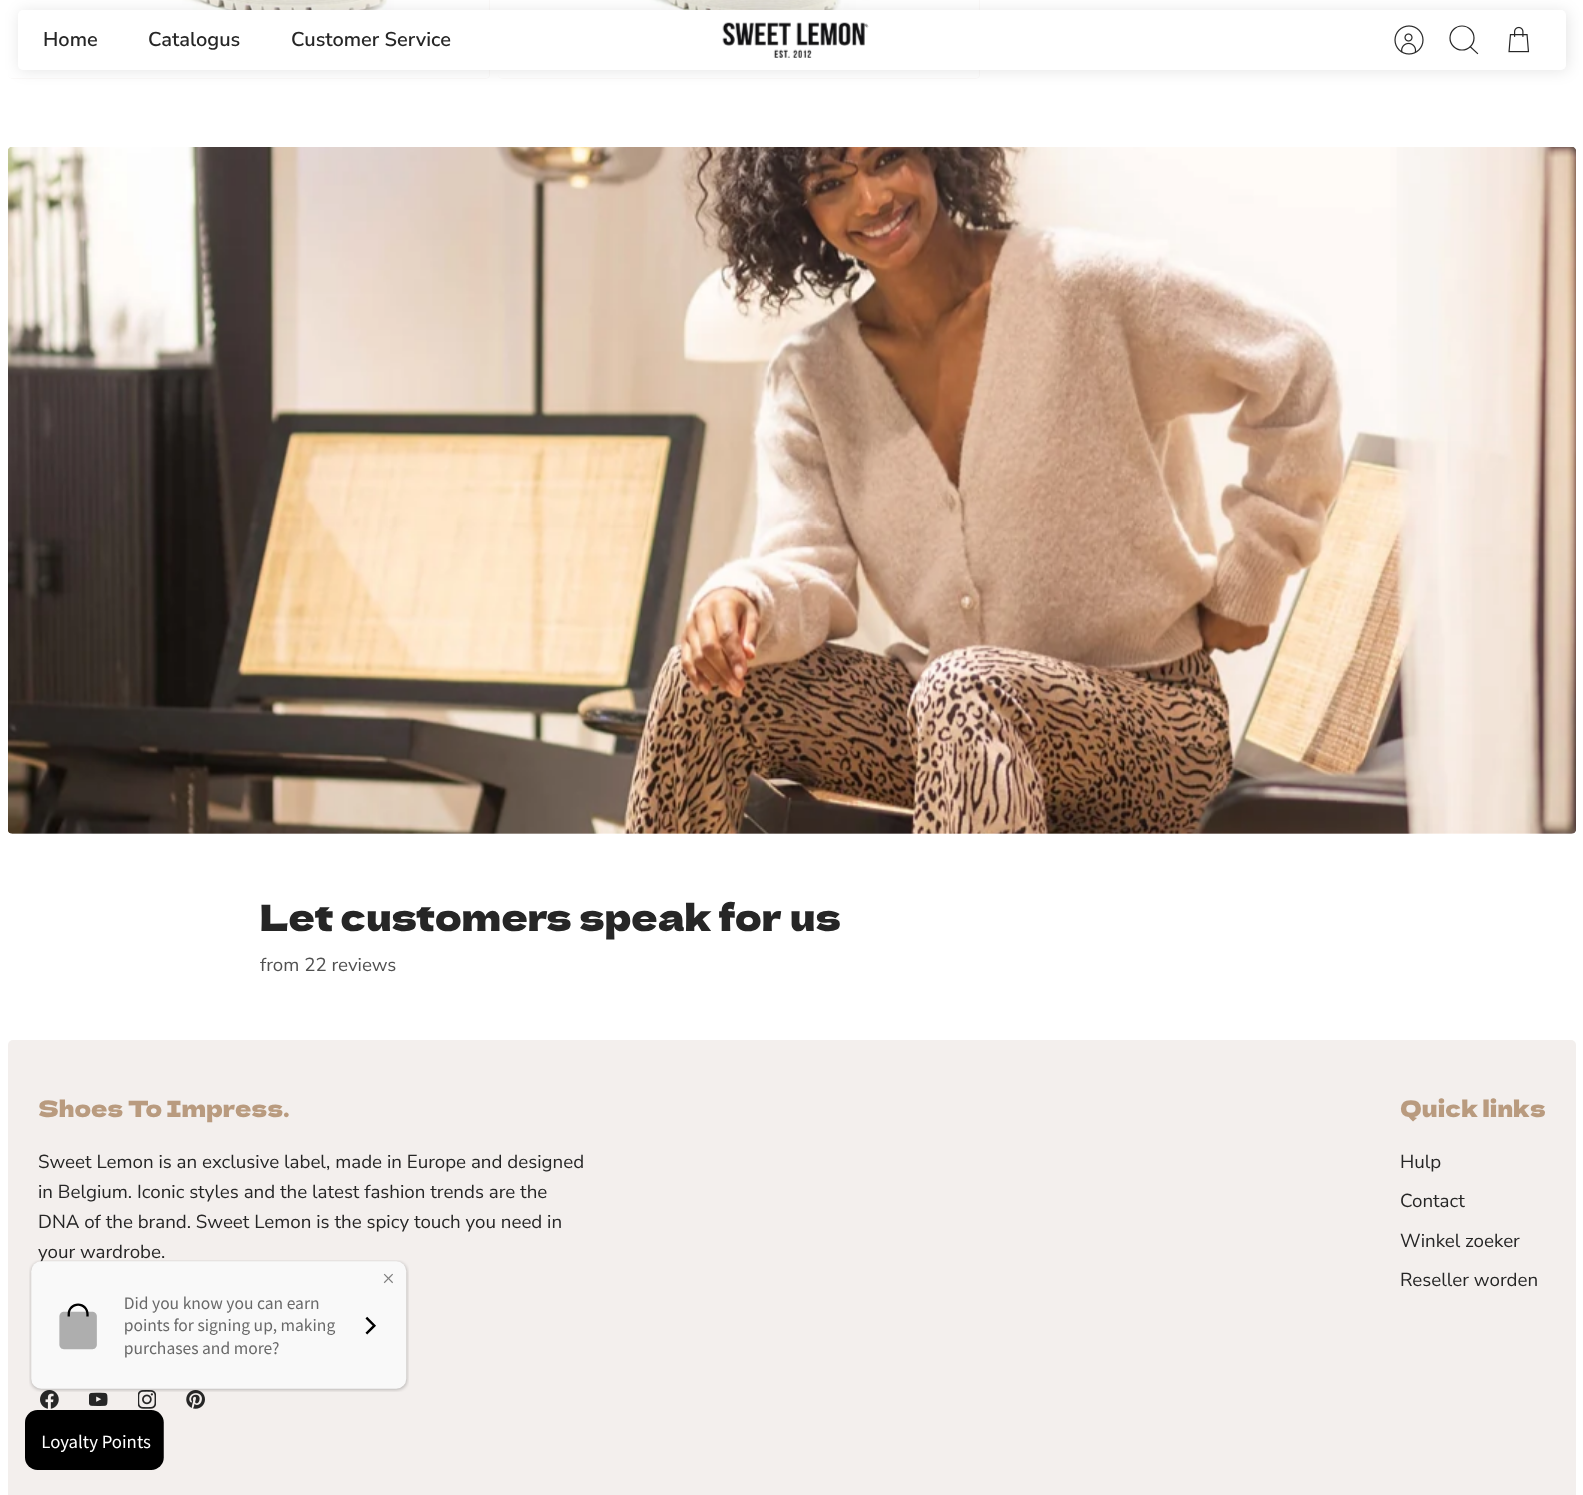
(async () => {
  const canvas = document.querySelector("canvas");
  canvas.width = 1583;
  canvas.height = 1495;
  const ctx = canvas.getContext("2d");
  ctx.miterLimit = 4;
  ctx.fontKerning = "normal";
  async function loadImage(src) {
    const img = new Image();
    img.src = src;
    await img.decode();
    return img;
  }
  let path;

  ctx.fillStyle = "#ffffff";
  ctx.fillRect(0, 0, 1583, 1495);
  ctx.fillStyle = "#f3efed";
  ctx.beginPath();
  ctx.roundRect(8, -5, 482, 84, 5);
  ctx.fill();
  ctx.drawImage(await loadImage("img/4.png"), 8, 0, 482, 79);
  ctx.beginPath();
  ctx.roundRect(498, -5, 482, 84, 5);
  ctx.fill();
  ctx.drawImage(await loadImage("img/5.png"), 498, 0, 482, 79);
  ctx.fillStyle = "rgba(0, 0, 0, 0.1)";
  ctx.filter = "blur(7.5px)";
  ctx.beginPath();
  ctx.roundRect(19, 11, 1549, 60, 5);
  ctx.fill();
  ctx.filter = "none";
  ctx.fillStyle = "#ffffff";
  ctx.beginPath();
  ctx.roundRect(18, 10, 1548, 60, 5);
  ctx.fill();
  ctx.drawImage(await loadImage("img/1.png"), 722, 22, 147, 36);
  ctx.drawImage(await loadImage("img/2.png"), 1394, 25, 30, 30);
  ctx.beginPath();
  ctx.arc(1462, 38, 12, 0, Math.PI * 2);
  ctx.strokeStyle = "#262626";
  ctx.lineWidth = 1.2;
  ctx.stroke();
  path = new Path2D("M1470.5 47L1477.5 53.5");
  ctx.lineCap = "square";
  ctx.stroke(path);
  ctx.drawImage(await loadImage("img/3.png"), 1508, 26, 22, 27);
  ctx.drawImage(await loadImage("img/6.png"), 8, 147, 1568, 687);
  ctx.fillStyle = "#f3efed";
  ctx.beginPath();
  ctx.roundRect(8, 1040, 1568, 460, 5);
  ctx.fill();
  ctx.drawImage(await loadImage("img/7.png"), 40, 1390, 19, 19);
  ctx.drawImage(await loadImage("img/8.png"), 89, 1392, 19, 14);
  ctx.drawImage(await loadImage("img/9.png"), 138, 1390, 18, 19);
  ctx.drawImage(await loadImage("img/10.png"), 186, 1390, 19, 19);
  ctx.drawImage(await loadImage("img/12.png"), 25, 1410, 139, 60);
  ctx.font = "600 20px Nunito Sans";
  ctx.fillStyle = "#262626";
  for (const [text, x, y] of [
    ["Home", 43, 46],
    ["Catalogus", 148, 46],
    ["Customer Service", 291, 46],
  ]) {
    ctx.fillText(text, x, y);
  }
  ctx.font = "36.25px Dela Gothic One";
  ctx.fillText("Let customers speak for us", 260, 931);
  ctx.font = "18.75px Nunito Sans";
  ctx.fillStyle = "#515151";
  ctx.fillText("from 22 reviews", 260, 971);
  ctx.font = "22.5px Dela Gothic One";
  ctx.fillStyle = "#b99b7f";
  ctx.fillText("Shoes To Impress.", 38, 1117);
  ctx.font = "18.75px Nunito Sans";
  ctx.fillStyle = "#262626";
  for (const [text, x, y] of [
    ["Sweet Lemon is an exclusive label, made in Europe and designed", 38, 1168],
    ["in Belgium. Iconic styles and the latest fashion trends are the", 38, 1198],
    ["DNA of the brand. Sweet Lemon is the spicy touch you need in", 38, 1228],
    ["your wardrobe.", 38, 1258],
  ]) {
    ctx.fillText(text, x, y);
  }
  ctx.font = "22.5px Dela Gothic One";
  ctx.fillStyle = "#b99b7f";
  ctx.fillText("Quick links", 1400, 1117);
  ctx.font = "18.75px Nunito Sans";
  ctx.fillStyle = "#262626";
  for (const [text, x, y] of [
    ["Hulp", 1400, 1168],
    ["Contact", 1400, 1207],
    ["Winkel zoeker", 1400, 1247],
    ["Reseller worden", 1400, 1286],
  ]) {
    ctx.fillText(text, x, y);
  }
  ctx.drawImage(await loadImage("img/11.png"), 29, 1260, 380, 132);
})();
